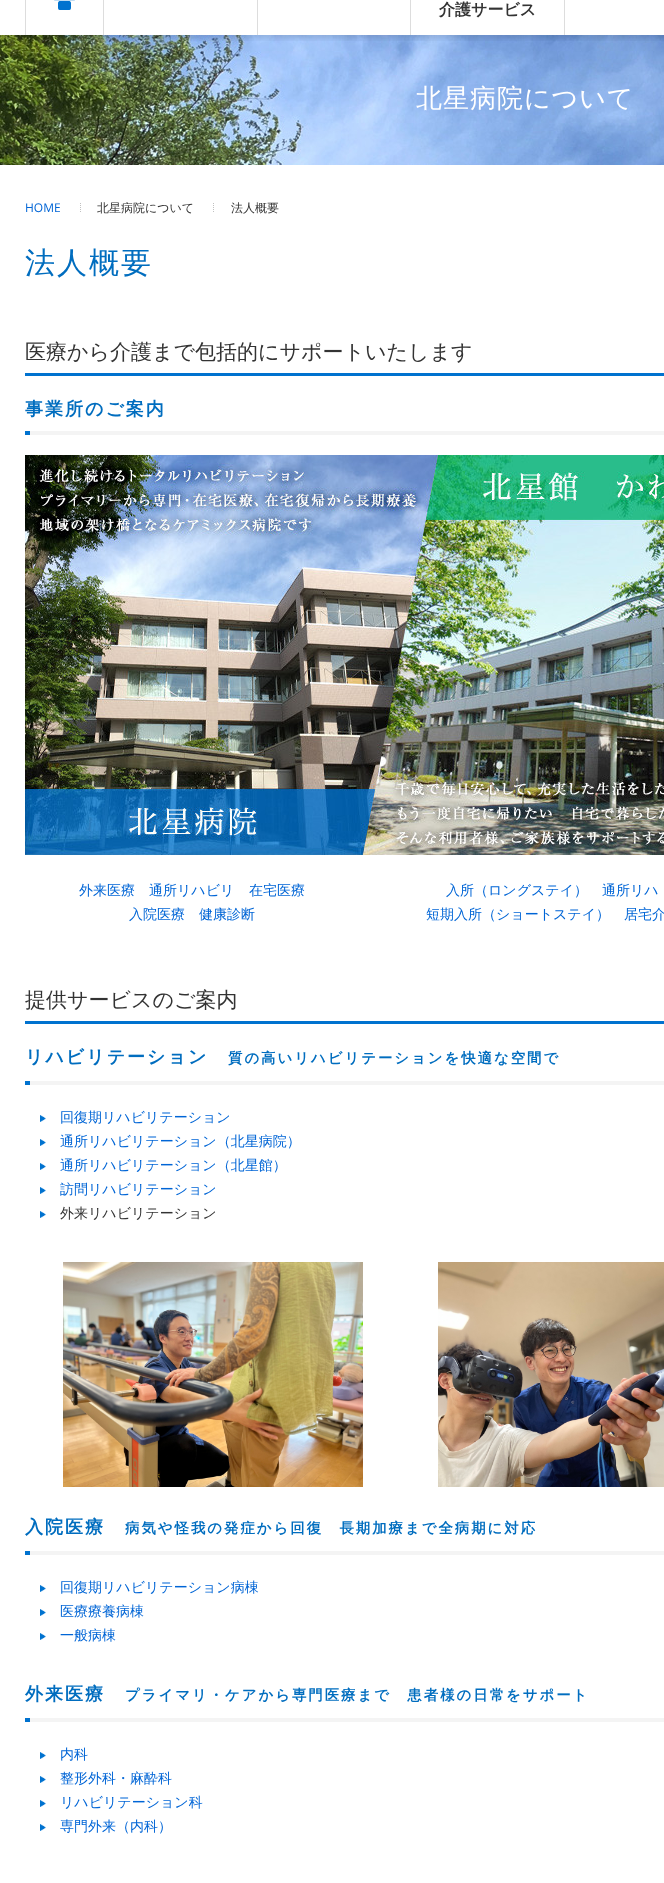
(async () => {
  const canvas = document.querySelector("canvas");
  canvas.width = 664;
  canvas.height = 1883;
  const ctx = canvas.getContext("2d");
  ctx.miterLimit = 4;
  ctx.fontKerning = "normal";
  async function loadImage(src) {
    const img = new Image();
    img.src = src;
    await img.decode();
    return img;
  }

  ctx.fillStyle = "#ffffff";
  ctx.fillRect(0, 0, 664, 1883);
  ctx.drawImage(await loadImage("img/2.png"), 0, 35, 664, 130);
  ctx.save();
  ctx.beginPath();
  ctx.rect(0, 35, 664, 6);
  ctx.clip();
  ctx.fillStyle = "rgba(0, 0, 0, 0.1)";
  ctx.filter = "blur(2.5px)";
  ctx.beginPath();
  ctx.rect(0, -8, 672, 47);
  ctx.fill();
  ctx.filter = "none";
  ctx.restore();
  ctx.fillStyle = "#dddddd";
  ctx.fillRect(103, 0, 1, 35);
  ctx.fillRect(25, 0, 1, 35);
  ctx.drawImage(await loadImage("img/1.png"), 54, 0, 21, 10);
  for (const [x, y, w, h, color] of [
    [257, 0, 1, 35, "#dddddd"],
    [410, 0, 1, 35, "#dddddd"],
    [564, 0, 1, 35, "#dddddd"],
  ]) {
    ctx.fillStyle = color;
    ctx.fillRect(x, y, w, h);
  }
  ctx.drawImage(await loadImage("img/3.png"), 80, 203, 1, 9);
  ctx.drawImage(await loadImage("img/3.png"), 213, 203, 1, 9);
  ctx.fillStyle = "#0072cf";
  ctx.fillRect(25, 373, 639, 3);
  ctx.drawImage(await loadImage("img/4.png"), 25, 431, 639, 4);
  ctx.drawImage(await loadImage("img/5.png"), 25, 455, 639, 400);
  ctx.fillRect(25, 1021, 639, 3);
  ctx.drawImage(await loadImage("img/4.png"), 25, 1081, 639, 4);
  ctx.drawImage(await loadImage("img/6.png"), 40, 1115, 6, 7);
  ctx.drawImage(await loadImage("img/6.png"), 40, 1139, 6, 7);
  ctx.drawImage(await loadImage("img/6.png"), 40, 1163, 6, 7);
  ctx.drawImage(await loadImage("img/6.png"), 40, 1187, 6, 7);
  ctx.drawImage(await loadImage("img/6.png"), 40, 1211, 6, 7);
  ctx.drawImage(await loadImage("img/7.png"), 63, 1262, 300, 225);
  ctx.drawImage(await loadImage("img/8.png"), 438, 1262, 226, 225);
  ctx.drawImage(await loadImage("img/4.png"), 25, 1551, 639, 4);
  ctx.drawImage(await loadImage("img/6.png"), 40, 1585, 6, 7);
  ctx.drawImage(await loadImage("img/6.png"), 40, 1609, 6, 7);
  ctx.drawImage(await loadImage("img/6.png"), 40, 1633, 6, 7);
  ctx.drawImage(await loadImage("img/4.png"), 25, 1718, 639, 4);
  ctx.drawImage(await loadImage("img/6.png"), 40, 1752, 6, 7);
  ctx.drawImage(await loadImage("img/6.png"), 40, 1776, 6, 7);
  ctx.drawImage(await loadImage("img/6.png"), 40, 1800, 6, 7);
  ctx.drawImage(await loadImage("img/6.png"), 40, 1824, 6, 7);
  ctx.font = "bold 16px WenQuanYi Zen Hei";
  ctx.fillStyle = "#333333";
  ctx.fillText("介護サービス", 439, 15);
  ctx.letterSpacing = "1px";
  ctx.font = "500 26px WenQuanYi Zen Hei";
  ctx.fillStyle = "#ffffff";
  ctx.fillText("北星病院について", 416, 107);
  ctx.letterSpacing = "0px";
  ctx.font = "12px Open Sans";
  ctx.fillStyle = "#0065d6";
  ctx.fillText("HOME", 25, 212);
  ctx.font = "500 12px WenQuanYi Zen Hei";
  ctx.fillStyle = "#333333";
  ctx.fillText("北星病院について", 97, 212);
  ctx.fillText("法人概要", 231, 212);
  ctx.letterSpacing = "2px";
  ctx.font = "500 30px WenQuanYi Zen Hei";
  ctx.fillStyle = "#006dbf";
  ctx.fillText("法人概要", 25, 273);
  ctx.letterSpacing = "0px";
  ctx.font = "500 21px WenQuanYi Zen Hei";
  ctx.fillStyle = "#333333";
  ctx.fillText("医療から介護まで包括的にサポートいたします", 25, 359);
  ctx.letterSpacing = "2px";
  ctx.font = "bold 18px WenQuanYi Zen Hei";
  ctx.fillStyle = "#006dbf";
  ctx.fillText("事業所のご案内", 25, 415);
  ctx.letterSpacing = "0px";
  ctx.font = "500 14px WenQuanYi Zen Hei";
  ctx.fillStyle = "#0065d6";
  for (const [text, x, y] of [
    ["外来医療", 79, 895],
    ["通所リハビリ", 149, 895],
    ["在宅医療", 249, 895],
    ["入院医療", 129, 919],
    ["健康診断", 199, 919],
    ["入所（ロングステイ）", 446, 895],
    ["通所リハ", 602, 895],
    ["短期入所（ショートステイ）", 426, 919],
    ["居宅介", 624, 919],
  ]) {
    ctx.fillText(text, x, y);
  }
  ctx.font = "500 21px WenQuanYi Zen Hei";
  ctx.fillStyle = "#333333";
  ctx.fillText("提供サービスのご案内", 25, 1007);
  ctx.letterSpacing = "2px";
  ctx.font = "bold 18px WenQuanYi Zen Hei";
  ctx.fillStyle = "#006dbf";
  ctx.fillText("リハビリテーション", 25, 1063);
  ctx.font = "bold 14.4px WenQuanYi Zen Hei";
  ctx.fillText("質の高いリハビリテーションを快適な空間で", 228, 1063);
  ctx.letterSpacing = "0px";
  ctx.font = "500 14px WenQuanYi Zen Hei";
  ctx.fillStyle = "#0065d6";
  for (const [text, x, y] of [
    ["回復期リハビリテーション", 60, 1122],
    ["通所リハビリテーション（北星病院）", 60, 1146],
    ["通所リハビリテーション（北星館）", 60, 1170],
    ["訪問リハビリテーション", 60, 1194],
  ]) {
    ctx.fillText(text, x, y);
  }
  ctx.fillStyle = "#333333";
  ctx.fillText("外来リハビリテーション", 60, 1218);
  ctx.letterSpacing = "2px";
  ctx.font = "bold 18px WenQuanYi Zen Hei";
  ctx.fillStyle = "#006dbf";
  ctx.fillText("入院医療", 25, 1533);
  ctx.font = "bold 14.4px WenQuanYi Zen Hei";
  ctx.fillText("病気や怪我の発症から回復　長期加療まで全病期に対応", 125, 1533);
  ctx.letterSpacing = "0px";
  ctx.font = "500 14px WenQuanYi Zen Hei";
  ctx.fillStyle = "#0065d6";
  for (const [text, x, y] of [
    ["回復期リハビリテーション病棟", 60, 1592],
    ["医療療養病棟", 60, 1616],
    ["一般病棟", 60, 1640],
  ]) {
    ctx.fillText(text, x, y);
  }
  ctx.letterSpacing = "2px";
  ctx.font = "bold 18px WenQuanYi Zen Hei";
  ctx.fillStyle = "#006dbf";
  ctx.fillText("外来医療", 25, 1700);
  ctx.font = "bold 14.4px WenQuanYi Zen Hei";
  ctx.fillText("プライマリ・ケアから専門医療まで　患者様の日常をサポート", 125, 1700);
  ctx.letterSpacing = "0px";
  ctx.font = "500 14px WenQuanYi Zen Hei";
  ctx.fillStyle = "#0065d6";
  for (const [text, x, y] of [
    ["内科", 60, 1759],
    ["整形外科・麻酔科", 60, 1783],
    ["リハビリテーション科", 60, 1807],
    ["専門外来（内科）", 60, 1831],
  ]) {
    ctx.fillText(text, x, y);
  }
})();
